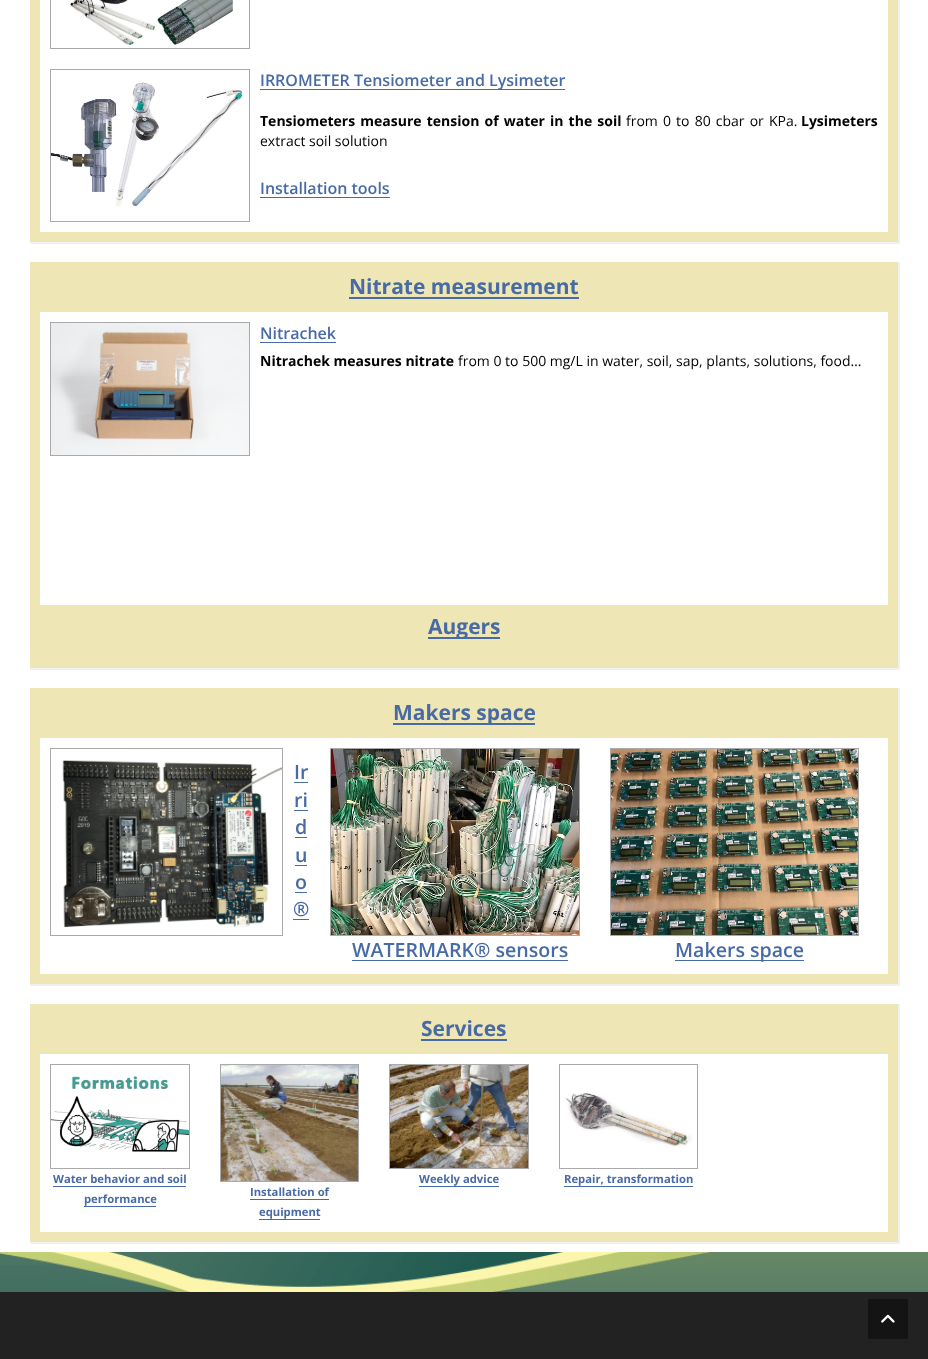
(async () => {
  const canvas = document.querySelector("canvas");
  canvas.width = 928;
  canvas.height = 1359;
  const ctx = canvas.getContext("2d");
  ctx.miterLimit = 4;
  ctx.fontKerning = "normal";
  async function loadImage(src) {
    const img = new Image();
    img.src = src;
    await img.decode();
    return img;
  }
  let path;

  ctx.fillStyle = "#ffffff";
  ctx.fillRect(0, 0, 928, 1359);
  ctx.drawImage(await loadImage("img/1.png"), 0, 1252, 928, 40);
  ctx.save();
  path = new Path2D("M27 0H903V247H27ZM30-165H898V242H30Z");
  ctx.clip(path, "evenodd");
  ctx.fillStyle = "#f0f0f0";
  ctx.filter = "blur(0.5px)";
  ctx.beginPath();
  ctx.rect(30, -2, 870, 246);
  ctx.fill();
  ctx.filter = "none";
  ctx.restore();
  ctx.strokeStyle = "#eee7b5";
  ctx.lineWidth = 10;
  ctx.strokeRect(35, -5, 858, 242);
  ctx.strokeStyle = "#aaaaaa";
  ctx.lineWidth = 1;
  ctx.strokeRect(50.5, -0.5, 199, 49);
  ctx.drawImage(await loadImage("img/2.png"), 70, 0, 164, 46);
  ctx.strokeRect(50.5, 69.5, 199, 152);
  ctx.drawImage(await loadImage("img/3.png"), 51, 82, 192, 125);
  ctx.fillStyle = "#486ba5";
  ctx.fillRect(260, 89, 305, 1);
  ctx.fillRect(260, 197, 130, 1);
  ctx.save();
  path = new Path2D("M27 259H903V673H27ZM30 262H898V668H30Z");
  ctx.clip(path, "evenodd");
  ctx.fillStyle = "#f0f0f0";
  ctx.filter = "blur(0.5px)";
  ctx.beginPath();
  ctx.rect(30, 262, 870, 408);
  ctx.fill();
  ctx.filter = "none";
  ctx.restore();
  ctx.strokeStyle = "#eee7b5";
  ctx.lineWidth = 10;
  ctx.strokeRect(35, 267, 858, 396);
  ctx.fillStyle = "#eee7b5";
  ctx.fillRect(40, 272, 848, 40);
  ctx.fillStyle = "#486ba5";
  ctx.fillRect(349, 297, 230, 2);
  ctx.strokeStyle = "#aaaaaa";
  ctx.lineWidth = 1;
  ctx.strokeRect(50.5, 322.5, 199, 133);
  ctx.drawImage(await loadImage("img/4.png"), 51, 323, 198, 132);
  for (const [x, y, w, h, color] of [
    [260, 342, 76, 1, "#486ba5"],
    [40, 605, 848, 53, "#eee7b5"],
    [428, 637, 72, 2, "#486ba5"],
  ]) {
    ctx.fillStyle = color;
    ctx.fillRect(x, y, w, h);
  }
  ctx.save();
  path = new Path2D("M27 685H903V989H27ZM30 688H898V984H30Z");
  ctx.clip(path, "evenodd");
  ctx.fillStyle = "#f0f0f0";
  ctx.filter = "blur(0.5px)";
  ctx.beginPath();
  ctx.rect(30, 688, 870, 298);
  ctx.fill();
  ctx.filter = "none";
  ctx.restore();
  ctx.strokeStyle = "#eee7b5";
  ctx.lineWidth = 10;
  ctx.strokeRect(35, 693, 858, 286);
  ctx.fillStyle = "#eee7b5";
  ctx.fillRect(40, 698, 848, 40);
  ctx.fillStyle = "#486ba5";
  ctx.fillRect(393, 723, 142, 2);
  ctx.strokeStyle = "#aaaaaa";
  ctx.lineWidth = 1;
  ctx.strokeRect(50.5, 748.5, 232, 187);
  ctx.drawImage(await loadImage("img/5.png"), 62, 760, 220, 168);
  for (const [x, y, w, h, color] of [
    [294, 782, 14, 1, "#486ba5"],
    [294, 810, 14, 1, "#486ba5"],
    [295, 837, 12, 1, "#486ba5"],
    [295, 865, 12, 1, "#486ba5"],
    [295, 892, 12, 1, "#486ba5"],
    [293, 919, 16, 1, "#486ba5"],
  ]) {
    ctx.fillStyle = color;
    ctx.fillRect(x, y, w, h);
  }
  ctx.strokeRect(330.5, 748.5, 249, 187);
  ctx.drawImage(await loadImage("img/6.png"), 331, 749, 248, 186);
  ctx.fillRect(352, 960, 216, 1);
  ctx.strokeRect(610.5, 748.5, 248, 187);
  ctx.drawImage(await loadImage("img/7.png"), 611, 749, 247, 186);
  ctx.fillRect(675, 960, 129, 1);
  ctx.save();
  path = new Path2D("M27 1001H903V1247H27ZM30 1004H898V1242H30Z");
  ctx.clip(path, "evenodd");
  ctx.fillStyle = "#f0f0f0";
  ctx.filter = "blur(0.5px)";
  ctx.beginPath();
  ctx.rect(30, 1004, 870, 240);
  ctx.fill();
  ctx.filter = "none";
  ctx.restore();
  ctx.strokeStyle = "#eee7b5";
  ctx.lineWidth = 10;
  ctx.strokeRect(35, 1009, 858, 228);
  ctx.fillStyle = "#eee7b5";
  ctx.fillRect(40, 1014, 848, 40);
  ctx.fillStyle = "#486ba5";
  ctx.fillRect(421, 1039, 86, 2);
  ctx.strokeStyle = "#aaaaaa";
  ctx.lineWidth = 1;
  ctx.strokeRect(50.5, 1064.5, 139, 104);
  ctx.drawImage(await loadImage("img/8.png"), 51, 1076, 138, 76);
  ctx.fillRect(53, 1186, 133, 1);
  ctx.fillRect(84, 1206, 72, 1);
  ctx.strokeRect(389.5, 1064.5, 139, 104);
  ctx.drawImage(await loadImage("img/9.png"), 390, 1065, 138, 103);
  ctx.fillRect(419, 1186, 80, 1);
  ctx.strokeRect(559.5, 1064.5, 138, 104);
  ctx.drawImage(await loadImage("img/10.png"), 565, 1093, 128, 54);
  ctx.fillRect(564, 1186, 129, 1);
  ctx.strokeRect(220.5, 1064.5, 138, 117);
  ctx.drawImage(await loadImage("img/11.png"), 221, 1065, 137, 116);
  for (const [x, y, w, h, color] of [
    [250, 1199, 79, 1, "#486ba5"],
    [259, 1219, 61, 1, "#486ba5"],
    [0, 1292, 928, 67, "#222222"],
  ]) {
    ctx.fillStyle = color;
    ctx.fillRect(x, y, w, h);
  }
  ctx.fillStyle = "#141414";
  ctx.beginPath();
  ctx.roundRect(868, 1299, 40, 40, 2);
  ctx.fill();
  ctx.drawImage(await loadImage("img/12.png"), 881, 1314, 14, 9);
  ctx.font = "600 16px Open Sans";
  ctx.fillStyle = "#486ba5";
  ctx.fillText("IRROMETER Tensiometer and Lysimeter", 260, 86);
  ctx.wordSpacing = "1.5px";
  ctx.font = "bold 14px Open Sans";
  ctx.fillStyle = "#000000";
  ctx.fillText("Tensiometers measure tension of water in the soil", 260, 126);
  ctx.font = "14px Open Sans";
  ctx.fillText("from 0 to 80 cbar or KPa.", 626, 126);
  ctx.wordSpacing = "0px";
  ctx.font = "bold 14px Open Sans";
  ctx.fillText("Lysimeters", 801, 126);
  ctx.font = "14px Open Sans";
  ctx.fillText("extract soil solution", 260, 146);
  ctx.font = "600 16px Open Sans";
  ctx.fillStyle = "#486ba5";
  ctx.fillText("Installation tools", 260, 194);
  ctx.font = "bold 21px Open Sans";
  ctx.fillText("Nitrate measurement", 349, 294);
  ctx.font = "600 16px Open Sans";
  ctx.fillText("Nitrachek", 260, 339);
  ctx.font = "bold 14px Open Sans";
  ctx.fillStyle = "#000000";
  ctx.fillText("Nitrachek measures nitrate", 260, 366);
  ctx.font = "14px Open Sans";
  ctx.fillText("from 0 to 500 mg/L in water, soil, sap, plants, solutions, food…", 458, 366);
  ctx.font = "bold 21px Open Sans";
  ctx.fillStyle = "#486ba5";
  ctx.fillText("Augers", 428, 634);
  ctx.fillText("Makers space", 393, 720);
  ctx.font = "600 19.6px Open Sans";
  for (const [text, x, y] of [
    ["Ir", 294, 779],
    ["ri", 294, 807],
    ["d", 295, 834],
    ["u", 295, 862],
    ["o", 295, 889],
    ["®", 293, 916],
    ["WATERMARK® sensors", 352, 957],
    ["Makers space", 675, 957],
  ]) {
    ctx.fillText(text, x, y);
  }
  ctx.font = "bold 21px Open Sans";
  ctx.fillText("Services", 421, 1036);
  ctx.font = "bold 11.25px Open Sans";
  for (const [text, x, y] of [
    ["Water behavior and soil", 53, 1183],
    ["performance", 84, 1203],
    ["Weekly advice", 419, 1183],
    ["Repair, transformation", 564, 1183],
    ["Installation of", 250, 1196],
    ["equipment", 259, 1216],
  ]) {
    ctx.fillText(text, x, y);
  }
})();
